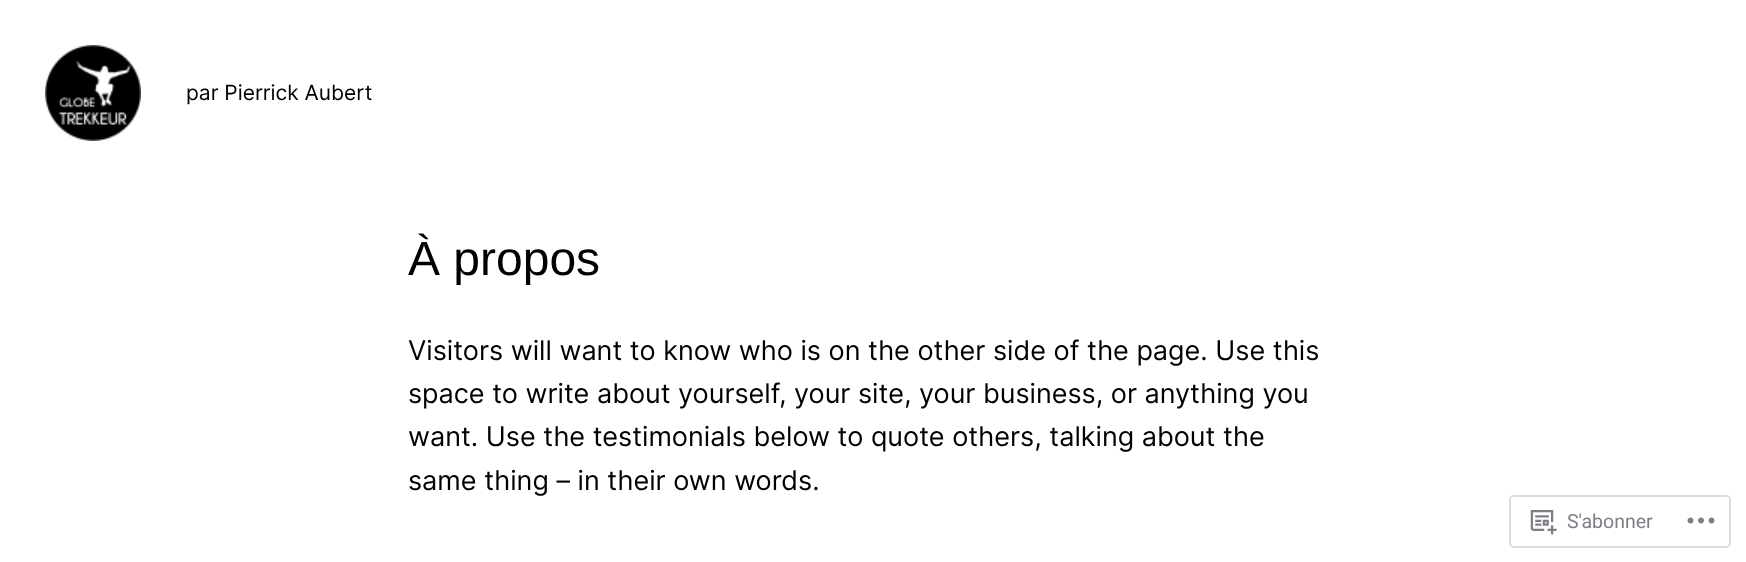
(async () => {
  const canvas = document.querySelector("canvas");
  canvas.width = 1746;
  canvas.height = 562;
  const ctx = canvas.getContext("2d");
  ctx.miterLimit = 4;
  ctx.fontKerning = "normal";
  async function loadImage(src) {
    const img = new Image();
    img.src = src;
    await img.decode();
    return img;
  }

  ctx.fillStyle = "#ffffff";
  ctx.fillRect(0, 0, 1746, 562);
  ctx.drawImage(await loadImage("img/1.png"), 45, 45, 96, 96);
  ctx.beginPath();
  ctx.roundRect(1510, 496, 220, 51, 4);
  ctx.strokeStyle = "#dddddf";
  ctx.lineWidth = 2;
  ctx.stroke();
  ctx.drawImage(await loadImage("img/2.png"), 1530, 510, 27, 25);
  ctx.drawImage(await loadImage("img/3.png"), 1687, 517, 28, 7);
  ctx.font = "21px Inter";
  ctx.fillStyle = "#000000";
  ctx.fillText("par Pierrick Aubert", 186, 100);
  ctx.font = "48px Liberation Sans";
  ctx.fillText("À propos", 408, 275);
  ctx.font = "27px Inter";
  for (const [text, x, y] of [
    ["Visitors will want to know who is on the other side of the page. Use this", 408, 360],
    ["space to write about yourself, your site, your business, or anything you", 408, 403],
    ["want. Use the testimonials below to quote others, talking about the", 408, 446],
    ["same thing – in their own words.", 408, 490],
  ]) {
    ctx.fillText(text, x, y);
  }
  ctx.font = "19.5px Roboto";
  ctx.fillStyle = "#7b7f85";
  ctx.fillText("S'abonner", 1567, 528);
})();
